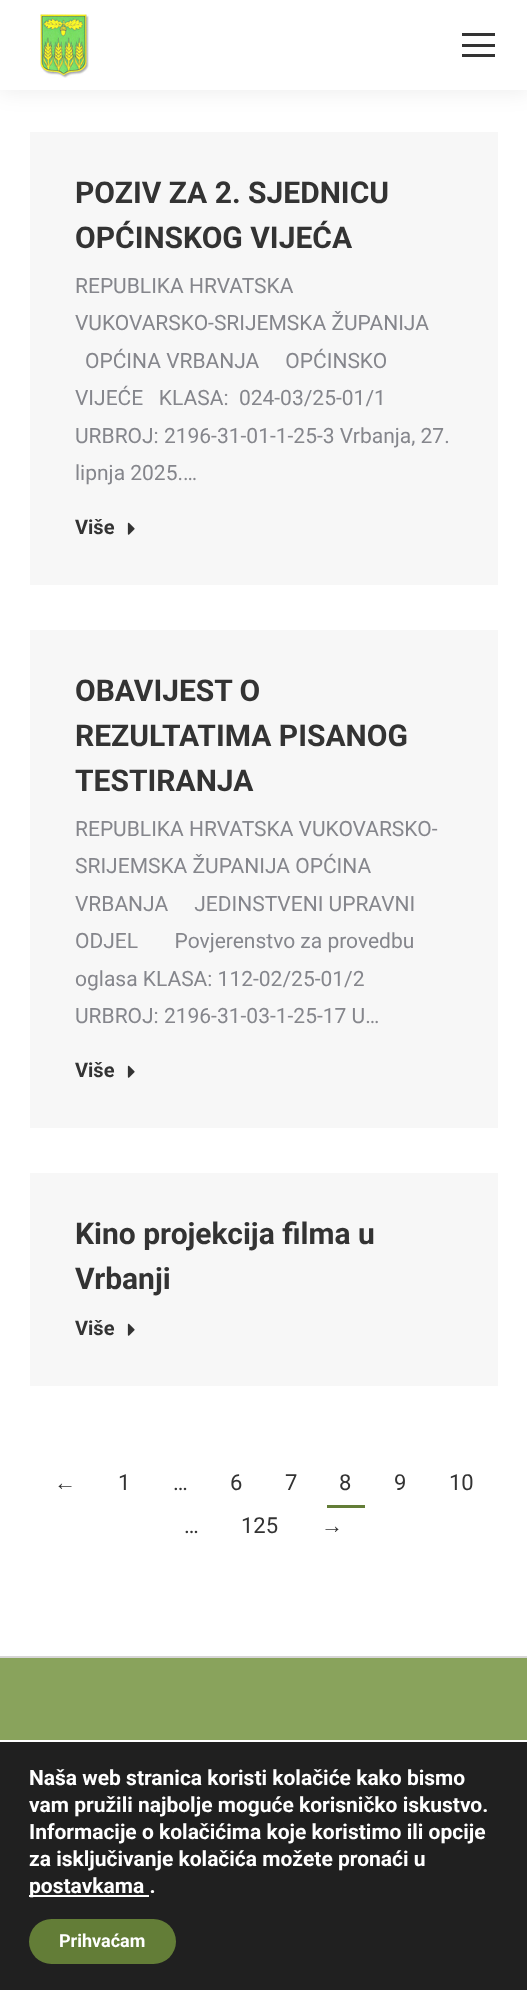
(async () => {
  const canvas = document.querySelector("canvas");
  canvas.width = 527;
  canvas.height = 1990;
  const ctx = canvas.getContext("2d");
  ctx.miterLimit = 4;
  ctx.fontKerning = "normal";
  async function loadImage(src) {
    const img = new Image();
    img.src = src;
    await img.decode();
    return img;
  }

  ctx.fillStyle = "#89a35c";
  ctx.fillRect(0, 0, 527, 1990);
  ctx.fillStyle = "#ffffff";
  ctx.fillRect(0, 90, 527, 1566);
  ctx.fillStyle = "rgba(0, 0, 0, 0.07)";
  ctx.filter = "blur(11px)";
  ctx.beginPath();
  ctx.rect(-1, -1, 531, 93);
  ctx.fill();
  ctx.filter = "none";
  ctx.fillStyle = "#ffffff";
  ctx.fillRect(0, 0, 527, 90);
  ctx.drawImage(await loadImage("img/1.png"), 40, 14, 49, 64);
  for (const [x, y, w, h, color] of [
    [462, 33, 33, 3, "#333333"],
    [462, 44, 33, 3, "#333333"],
    [462, 54, 33, 3, "#333333"],
    [30, 132, 468, 453, "#f7f7f7"],
  ]) {
    ctx.fillStyle = color;
    ctx.fillRect(x, y, w, h);
  }
  ctx.drawImage(await loadImage("img/2.png"), 127, 522, 8, 13);
  ctx.fillRect(30, 630, 468, 498);
  ctx.drawImage(await loadImage("img/2.png"), 127, 1065, 8, 13);
  ctx.fillRect(30, 1173, 468, 213);
  ctx.drawImage(await loadImage("img/2.png"), 127, 1323, 8, 13);
  for (const [x, y, w, h, color] of [
    [327, 1505, 38, 3, "#637d37"],
    [0, 1656, 527, 2, "#d7d6d6"],
    [0, 1742, 527, 248, "#202020"],
    [0, 1740, 527, 2, "#ffffff"],
    [29, 1895, 120, 2, "#ffffff"],
  ]) {
    ctx.fillStyle = color;
    ctx.fillRect(x, y, w, h);
  }
  ctx.fillStyle = "#637d37";
  ctx.beginPath();
  ctx.roundRect(29, 1919, 147, 45, 22.5);
  ctx.fill();
  ctx.font = "bold 30px Roboto";
  ctx.fillStyle = "#333333";
  ctx.fillText("POZIV ZA 2. SJEDNICU", 75, 203);
  ctx.fillText("OPĆINSKOG VIJEĆA", 75, 248);
  ctx.font = "21px Roboto";
  ctx.fillStyle = "#85868c";
  for (const [text, x, y] of [
    ["REPUBLIKA HRVATSKA", 75, 293],
    ["VUKOVARSKO-SRIJEMSKA ŽUPANIJA", 75, 330],
    ["OPĆINA VRBANJA     OPĆINSKO", 85, 368],
    ["VIJEĆE   KLASA:  024-03/25-01/1", 75, 405],
    ["URBROJ: 2196-31-01-1-25-3 Vrbanja, 27.", 75, 443],
    ["lipnja 2025.…", 75, 480],
  ]) {
    ctx.fillText(text, x, y);
  }
  ctx.font = "bold 20px Roboto";
  ctx.fillStyle = "#333333";
  ctx.fillText("Više", 75, 534);
  ctx.font = "bold 30px Roboto";
  for (const [text, x, y] of [
    ["OBAVIJEST O", 75, 701],
    ["REZULTATIMA PISANOG", 75, 746],
    ["TESTIRANJA", 75, 791],
  ]) {
    ctx.fillText(text, x, y);
  }
  ctx.font = "21px Roboto";
  ctx.fillStyle = "#85868c";
  for (const [text, x, y] of [
    ["REPUBLIKA HRVATSKA VUKOVARSKO-", 75, 836],
    ["SRIJEMSKA ŽUPANIJA OPĆINA", 75, 873],
    ["VRBANJA     JEDINSTVENI UPRAVNI", 75, 911],
    ["ODJEL       Povjerenstvo za provedbu", 75, 948],
    ["oglasa KLASA: 112-02/25-01/2", 75, 986],
    ["URBROJ: 2196-31-03-1-25-17 U…", 75, 1023],
  ]) {
    ctx.fillText(text, x, y);
  }
  ctx.font = "bold 20px Roboto";
  ctx.fillStyle = "#333333";
  ctx.fillText("Više", 75, 1077);
  ctx.font = "bold 30px Roboto";
  ctx.fillText("Kino projekcija filma u", 75, 1244);
  ctx.fillText("Vrbanji", 75, 1289);
  ctx.font = "bold 20px Roboto";
  ctx.fillText("Više", 75, 1335);
  ctx.font = "22px Liberation Sans";
  ctx.fillText("←", 54, 1490);
  ctx.font = "22px Roboto";
  for (const [text, x, y] of [
    ["1", 118, 1490],
    ["…", 173, 1490],
    ["6", 230, 1490],
    ["7", 285, 1490],
    ["8", 339, 1490],
    ["9", 394, 1490],
    ["10", 449, 1490],
    ["…", 184, 1533],
    ["125", 241, 1533],
  ]) {
    ctx.fillText(text, x, y);
  }
  ctx.font = "22px Liberation Sans";
  ctx.fillText("→", 321, 1533);
  ctx.font = "bold 21px Roboto";
  ctx.fillStyle = "#ffffff";
  for (const [text, x, y] of [
    ["Naša web stranica koristi kolačiće kako bismo", 29, 1785],
    ["vam pružili najbolje moguće korisničko iskustvo.", 29, 1812],
    ["Informacije o kolačićima koje koristimo ili opcije", 29, 1839],
    ["za isključivanje kolačića možete pronaći u", 29, 1866],
    ["postavkama .", 29, 1893],
  ]) {
    ctx.fillText(text, x, y);
  }
  ctx.font = "bold 18px Roboto";
  ctx.fillText("Prihvaćam", 59, 1947);
})();
